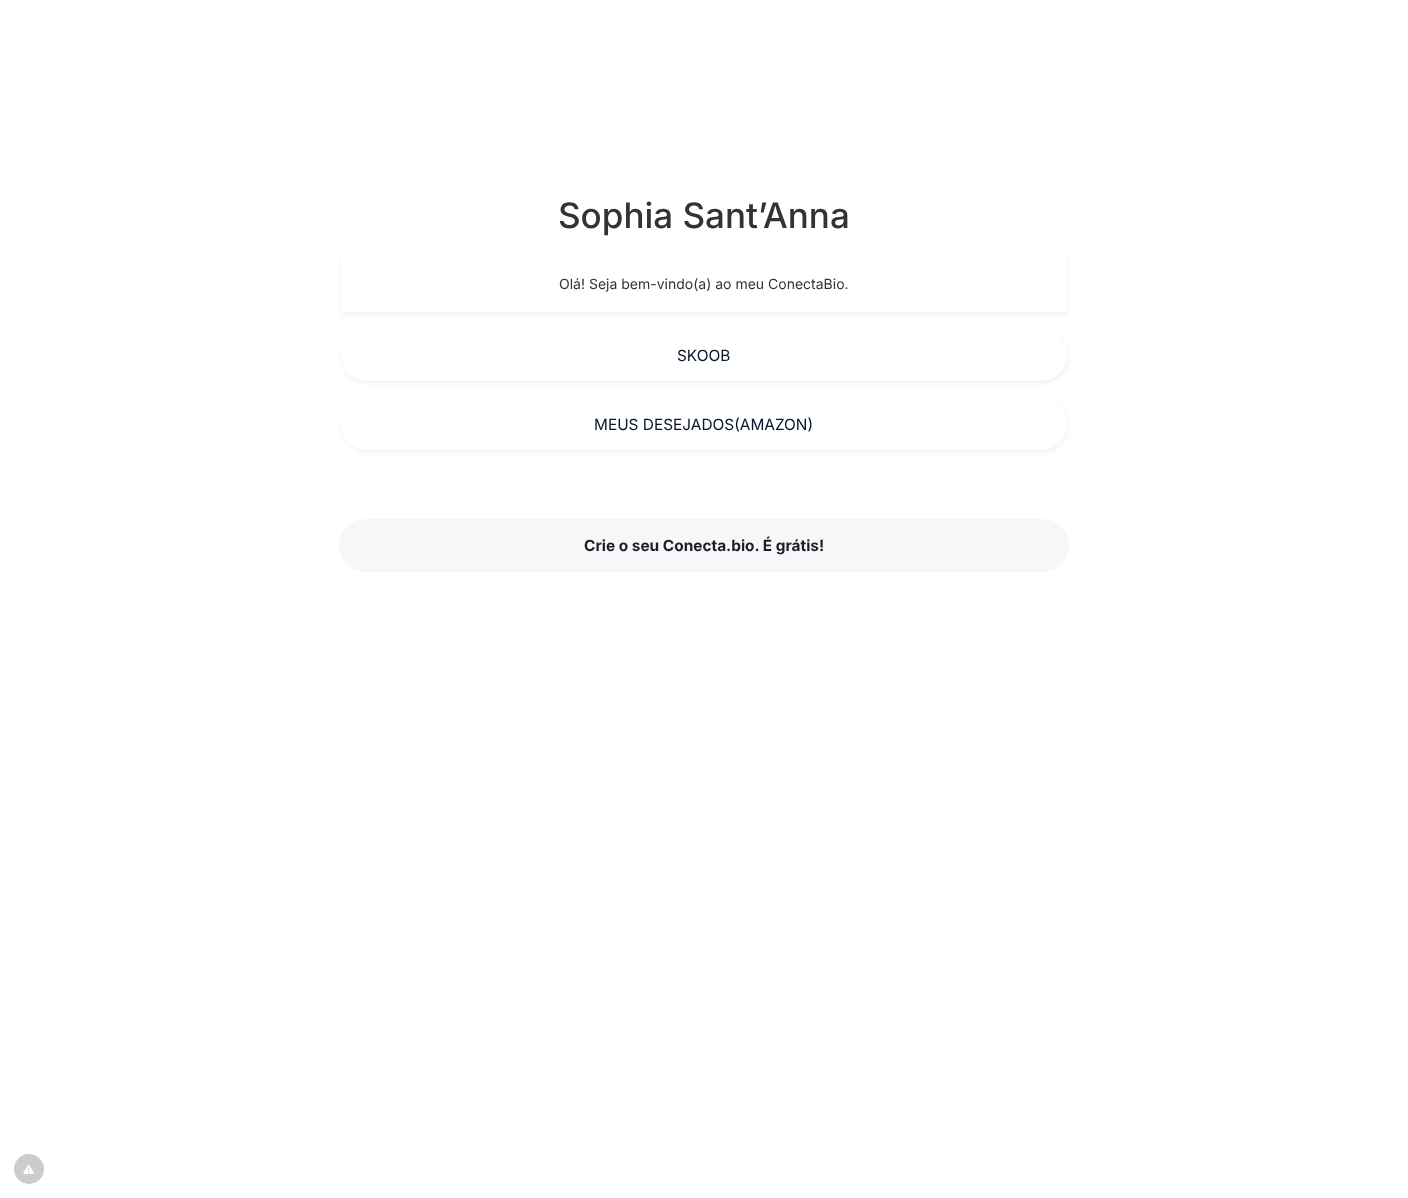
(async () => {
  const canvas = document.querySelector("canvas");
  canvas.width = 1408;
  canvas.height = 1198;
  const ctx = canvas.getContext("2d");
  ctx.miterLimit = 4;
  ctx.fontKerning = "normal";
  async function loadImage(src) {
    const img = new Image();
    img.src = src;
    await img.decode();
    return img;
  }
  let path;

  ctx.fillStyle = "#ffffff";
  ctx.fillRect(0, 0, 1408, 1198);
  ctx.save();
  path = new Path2D("M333 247H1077V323H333ZM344 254H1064C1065.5 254 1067 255.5 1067 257V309C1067 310.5 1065.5 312 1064 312H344C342.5 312 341 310.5 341 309V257C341 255.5 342.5 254 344 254Z");
  ctx.clip(path, "evenodd");
  ctx.fillStyle = "rgba(0, 0, 0, 0.06)";
  ctx.filter = "blur(2.5px)";
  ctx.beginPath();
  ctx.roundRect(342, 256, 726, 58, 3);
  ctx.fill();
  ctx.filter = "none";
  ctx.restore();
  ctx.fillStyle = "rgba(0, 0, 0, 0.06)";
  ctx.filter = "blur(2.5px)";
  ctx.beginPath();
  ctx.roundRect(342, 332, 726, 51, 25.5);
  ctx.fill();
  ctx.filter = "none";
  ctx.fillStyle = "#ffffff";
  ctx.beginPath();
  ctx.roundRect(341, 330, 726, 51, 25.5);
  ctx.fill();
  ctx.fillStyle = "rgba(0, 0, 0, 0.06)";
  ctx.filter = "blur(2.5px)";
  ctx.beginPath();
  ctx.roundRect(342, 401, 726, 51, 25.5);
  ctx.fill();
  ctx.filter = "none";
  ctx.fillStyle = "#ffffff";
  ctx.beginPath();
  ctx.roundRect(341, 399, 726, 51, 25.5);
  ctx.fill();
  ctx.fillStyle = "#f6f7f8";
  ctx.beginPath();
  ctx.roundRect(339, 519, 730, 53, 26.5);
  ctx.fill();
  ctx.fillStyle = "#cccccc";
  ctx.beginPath();
  ctx.arc(29, 1169, 15, 0, Math.PI * 2);
  ctx.fill();
  ctx.drawImage(await loadImage("img/1.png"), 23, 1164, 11, 10);
  ctx.font = "500 35px Inter";
  ctx.fillStyle = "#333333";
  ctx.fillText("Sophia Sant’Anna", 558, 228);
  ctx.font = "14px Inter";
  ctx.fillText("Olá! Seja bem-vindo(a) ao meu ConectaBio.", 559, 289);
  ctx.font = "15.4px Inter";
  ctx.fillStyle = "#08162b";
  ctx.fillText("SKOOB", 677, 361);
  ctx.fillText("MEUS DESEJADOS(AMAZON)", 594, 430);
  ctx.font = "bold 15.4px Inter";
  ctx.fillStyle = "#1d1f25";
  ctx.fillText("Crie o seu Conecta.bio. É grátis!", 584, 551);
})();
